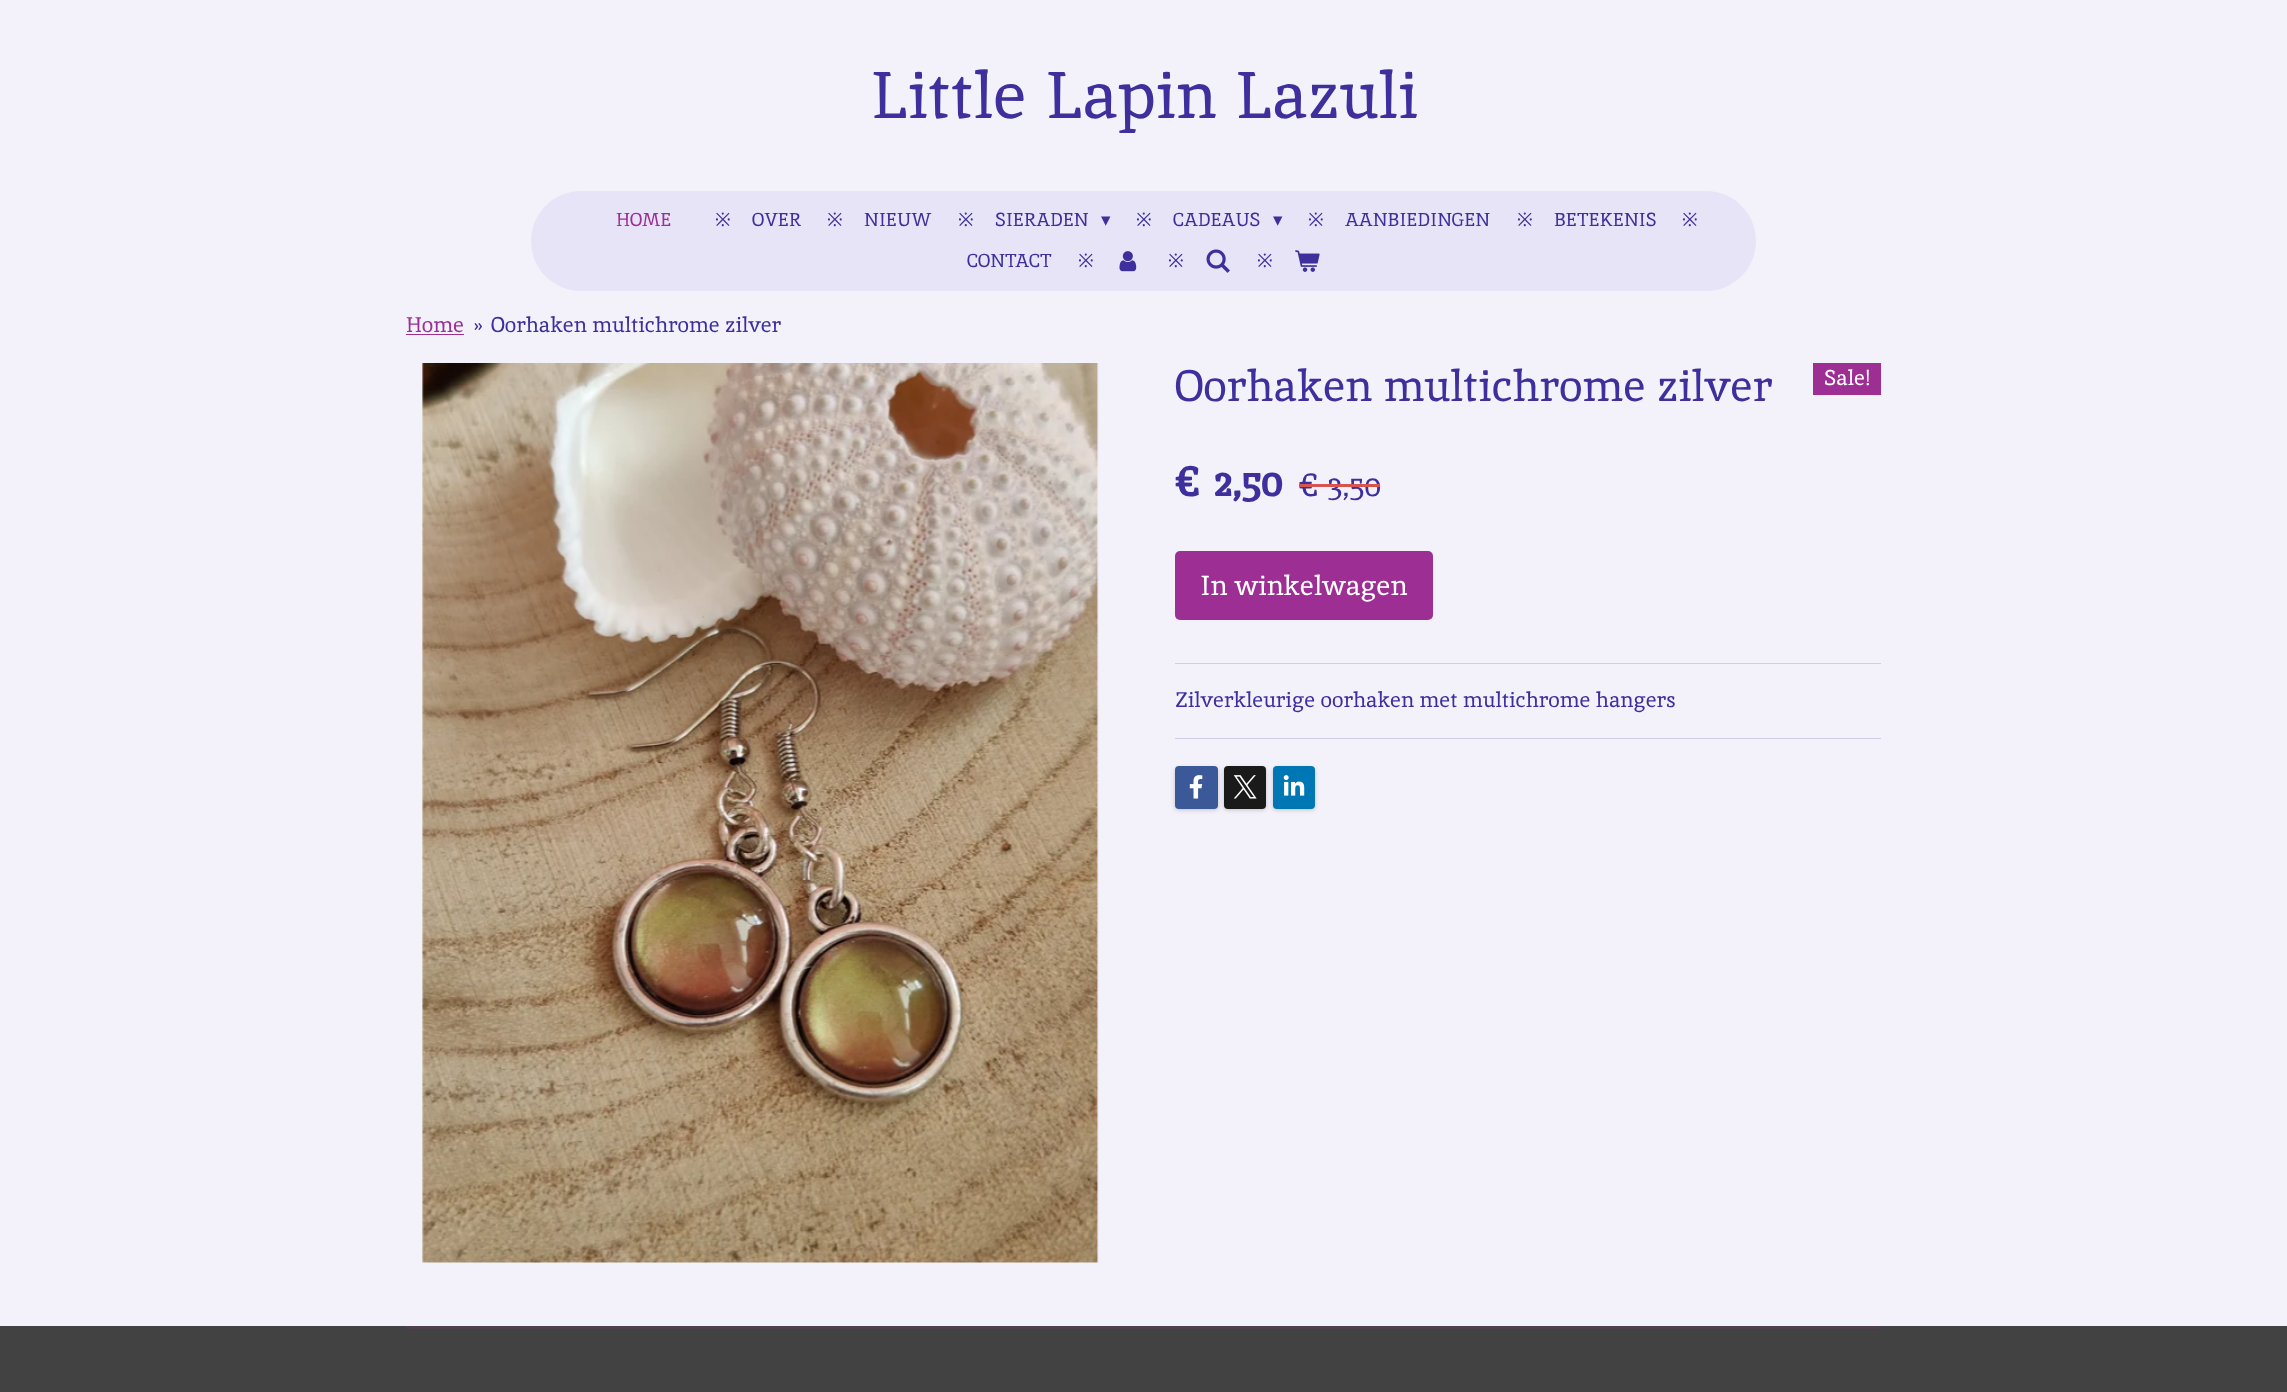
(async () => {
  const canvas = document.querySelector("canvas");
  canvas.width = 2287;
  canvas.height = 1392;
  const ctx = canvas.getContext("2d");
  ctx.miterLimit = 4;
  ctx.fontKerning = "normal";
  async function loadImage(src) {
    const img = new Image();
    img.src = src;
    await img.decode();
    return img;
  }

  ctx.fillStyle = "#f3f2fb";
  ctx.fillRect(0, 0, 2287, 1392);
  ctx.fillStyle = "#e7e4f7";
  ctx.beginPath();
  ctx.roundRect(531, 191, 1225, 100, 50);
  ctx.fill();
  ctx.drawImage(await loadImage("img/1.png"), 1119, 251, 18, 21);
  ctx.drawImage(await loadImage("img/2.png"), 1206, 249, 24, 24);
  ctx.drawImage(await loadImage("img/3.png"), 1295, 250, 25, 22);
  ctx.fillStyle = "#9d2f94";
  ctx.fillRect(406, 334, 58, 1);
  ctx.drawImage(await loadImage("img/4.png"), 422, 363, 677, 900);
  ctx.fillRect(1813, 363, 68, 32);
  ctx.beginPath();
  ctx.roundRect(1175, 551, 258, 69, 5);
  ctx.fill();
  ctx.fillStyle = "#cfcbe8";
  ctx.fillRect(1175, 663, 706, 1);
  ctx.fillRect(1175, 738, 706, 1);
  ctx.fillStyle = "rgba(0, 0, 0, 0.2)";
  ctx.filter = "blur(2px)";
  ctx.beginPath();
  ctx.roundRect(1175, 768, 43, 42, 4);
  ctx.fill();
  ctx.filter = "none";
  ctx.fillStyle = "#3b5998";
  ctx.beginPath();
  ctx.roundRect(1175, 766, 43, 43, 4);
  ctx.fill();
  ctx.drawImage(await loadImage("img/5.png"), 1189, 775, 14, 24);
  ctx.fillStyle = "rgba(0, 0, 0, 0.2)";
  ctx.filter = "blur(2px)";
  ctx.beginPath();
  ctx.roundRect(1224, 768, 42, 42, 4);
  ctx.fill();
  ctx.filter = "none";
  ctx.fillStyle = "#1a1a1a";
  ctx.beginPath();
  ctx.roundRect(1224, 766, 42, 43, 4);
  ctx.fill();
  ctx.drawImage(await loadImage("img/6.png"), 1233, 775, 24, 24);
  ctx.fillStyle = "rgba(0, 0, 0, 0.2)";
  ctx.filter = "blur(2px)";
  ctx.beginPath();
  ctx.roundRect(1273, 768, 42, 42, 4);
  ctx.fill();
  ctx.filter = "none";
  ctx.fillStyle = "#0077b5";
  ctx.beginPath();
  ctx.roundRect(1273, 766, 42, 43, 4);
  ctx.fill();
  ctx.drawImage(await loadImage("img/7.png"), 1283, 775, 22, 21);
  ctx.fillStyle = "#424242";
  ctx.fillRect(0, 1326, 2287, 66);
  ctx.fillStyle = "#503f4e";
  ctx.fillRect(406, 1326, 1475, 3);
  ctx.font = "65.6px Inika";
  ctx.fillStyle = "#3e2f9d";
  ctx.fillText("Little Lapin Lazuli", 869, 118);
  ctx.font = "18.75px Inika";
  ctx.fillStyle = "#9d2f94";
  ctx.fillText("HOME", 616, 226);
  ctx.font = "18.75px Noto Sans";
  ctx.fillStyle = "#3e2f9d";
  ctx.fillText("※", 715, 226);
  ctx.font = "18.75px Inika";
  ctx.fillText("OVER", 752, 226);
  ctx.font = "18.75px Noto Sans";
  ctx.fillText("※", 827, 226);
  ctx.font = "18.75px Inika";
  ctx.fillText("NIEUW", 864, 226);
  ctx.font = "18.75px Noto Sans";
  ctx.fillText("※", 958, 226);
  ctx.font = "18.75px Inika";
  ctx.fillText("SIERADEN", 995, 226);
  ctx.font = "18.75px DejaVu Sans";
  ctx.fillText("▾", 1101, 226);
  ctx.font = "18.75px Noto Sans";
  ctx.fillText("※", 1136, 226);
  ctx.font = "18.75px Inika";
  ctx.fillText("CADEAUS", 1173, 226);
  ctx.font = "18.75px DejaVu Sans";
  ctx.fillText("▾", 1273, 226);
  ctx.font = "18.75px Noto Sans";
  ctx.fillText("※", 1308, 226);
  ctx.font = "18.75px Inika";
  ctx.fillText("AANBIEDINGEN", 1345, 226);
  ctx.font = "18.75px Noto Sans";
  ctx.fillText("※", 1517, 226);
  ctx.font = "18.75px Inika";
  ctx.fillText("BETEKENIS", 1554, 226);
  ctx.font = "18.75px Noto Sans";
  ctx.fillText("※", 1682, 226);
  ctx.font = "18.75px Inika";
  ctx.fillText("CONTACT", 967, 267);
  ctx.font = "18.75px Noto Sans";
  for (const [text, x, y] of [
    ["※", 1078, 267],
    ["※", 1168, 267],
    ["※", 1257, 267],
  ]) {
    ctx.fillText(text, x, y);
  }
  ctx.font = "21.25px Inika";
  ctx.fillStyle = "#9d2f94";
  ctx.fillText("Home", 406, 332);
  ctx.fillStyle = "#3e2f9d";
  ctx.fillText("»", 473, 332);
  ctx.fillText("Oorhaken multichrome zilver", 491, 332);
  ctx.font = "43.75px Inika";
  ctx.fillText("Oorhaken multichrome zilver", 1175, 401);
  ctx.font = "21.25px Inika";
  ctx.fillStyle = "#ffffff";
  ctx.fillText("Sale!", 1824, 385);
  ctx.font = "bold 42.5px Inika";
  ctx.fillStyle = "#3e2f9d";
  ctx.fillText("€ 2,50", 1175, 496);
  ctx.font = "32px Inika";
  ctx.fillText("€ 3,50", 1299, 496);
  ctx.fillStyle = "#d9534f";
  ctx.fillRect(1299, 484, 81, 3);
  ctx.font = "27.5px Inika";
  ctx.fillStyle = "#ffffff";
  ctx.fillText("In winkelwagen", 1200, 595);
  ctx.font = "21.25px Inika";
  ctx.fillStyle = "#3e2f9d";
  ctx.fillText("Zilverkleurige oorhaken met multichrome hangers", 1175, 707);
})();
